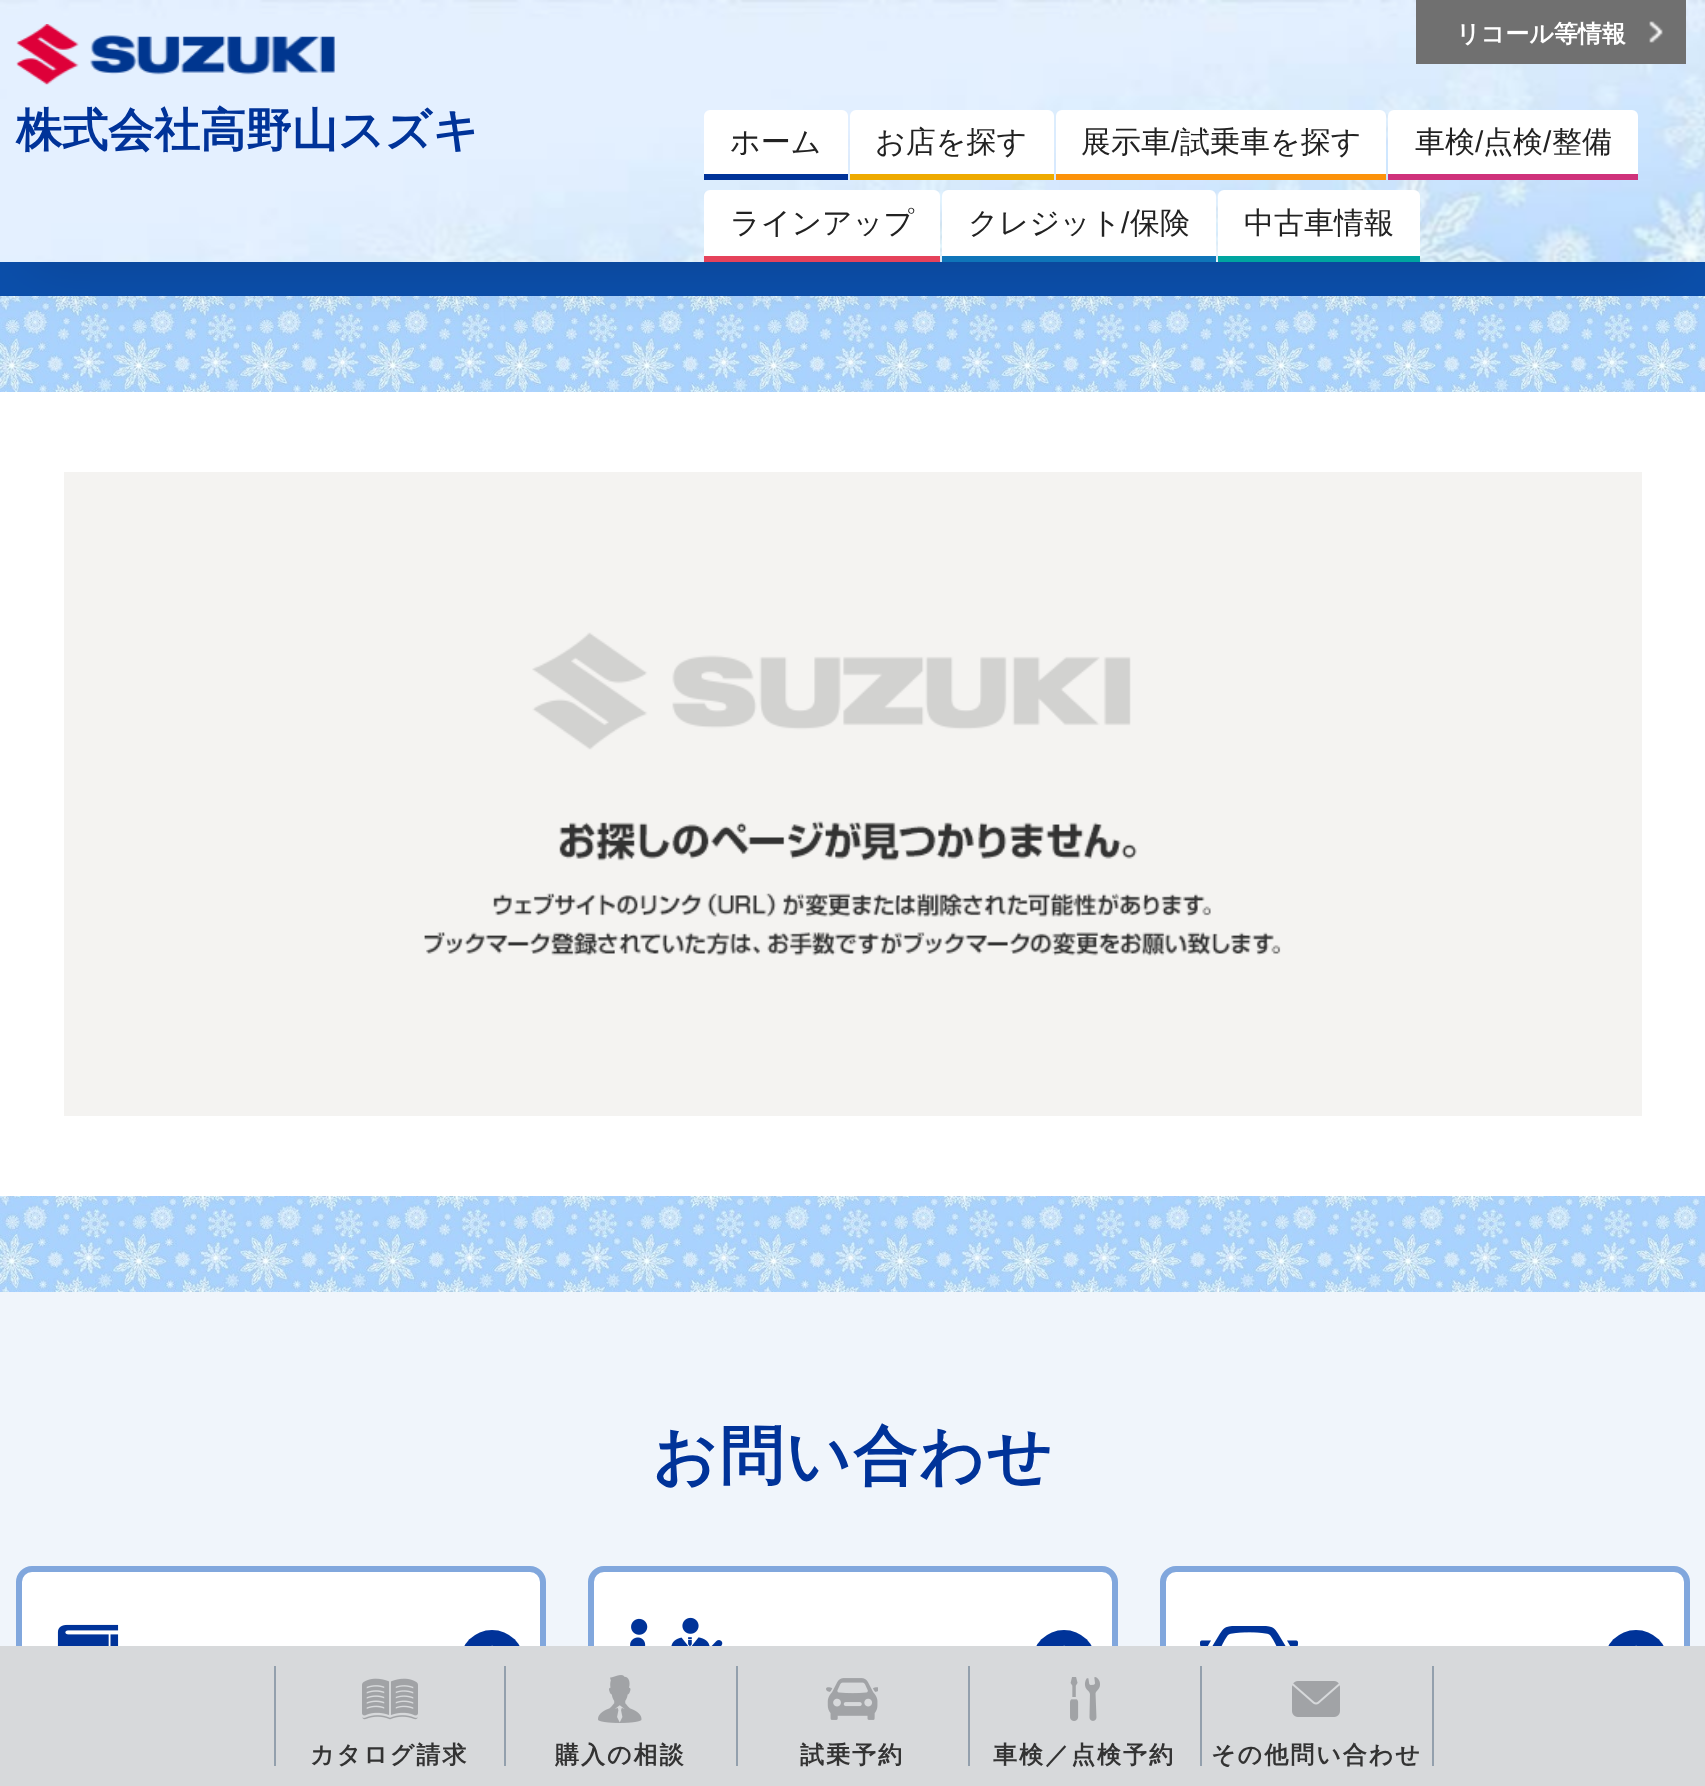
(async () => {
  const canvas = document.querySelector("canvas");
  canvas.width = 1705;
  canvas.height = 1786;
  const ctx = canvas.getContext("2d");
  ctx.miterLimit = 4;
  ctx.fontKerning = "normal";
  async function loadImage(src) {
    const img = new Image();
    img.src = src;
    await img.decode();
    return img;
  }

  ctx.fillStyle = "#ffffff";
  ctx.fillRect(0, 0, 1705, 1786);
  ctx.fillStyle = "#0c4fab";
  ctx.fillRect(0, 262, 1705, 34);
  ctx.drawImage(await loadImage("img/4.png"), 0, 296, 1705, 996);
  ctx.fillStyle = "rgba(0, 0, 0, 0.15)";
  ctx.filter = "blur(30px)";
  ctx.beginPath();
  ctx.rect(30, 60, 1646, 202);
  ctx.fill();
  ctx.filter = "none";
  ctx.drawImage(await loadImage("img/1.png"), 0, 0, 1705, 262);
  ctx.drawImage(await loadImage("img/2.png"), 16, 24, 319, 61);
  ctx.fillStyle = "#707070";
  ctx.fillRect(1416, 0, 270, 64);
  ctx.drawImage(await loadImage("img/3.png"), 1649, 21, 14, 22);
  ctx.fillStyle = "#003399";
  ctx.fillRect(704, 174, 144, 6);
  ctx.fillStyle = "#ffffff";
  ctx.beginPath();
  ctx.roundRect(704, 110, 144, 64, [6, 6, 0, 0]);
  ctx.fill();
  ctx.fillStyle = "#eeaa00";
  ctx.fillRect(850, 174, 204, 6);
  ctx.fillStyle = "#ffffff";
  ctx.beginPath();
  ctx.roundRect(850, 110, 204, 64, [6, 6, 0, 0]);
  ctx.fill();
  ctx.fillStyle = "#fc920a";
  ctx.fillRect(1056, 174, 330, 6);
  ctx.fillStyle = "#ffffff";
  ctx.beginPath();
  ctx.roundRect(1056, 110, 330, 64, [6, 6, 0, 0]);
  ctx.fill();
  ctx.fillStyle = "#cf327b";
  ctx.fillRect(1388, 174, 250, 6);
  ctx.fillStyle = "#ffffff";
  ctx.beginPath();
  ctx.roundRect(1388, 110, 250, 64, [6, 6, 0, 0]);
  ctx.fill();
  ctx.fillStyle = "#e5425b";
  ctx.fillRect(704, 256, 236, 6);
  ctx.fillStyle = "#ffffff";
  ctx.beginPath();
  ctx.roundRect(704, 190, 236, 66, [6, 6, 0, 0]);
  ctx.fill();
  ctx.fillStyle = "#0f75b9";
  ctx.fillRect(942, 256, 274, 6);
  ctx.fillStyle = "#ffffff";
  ctx.beginPath();
  ctx.roundRect(942, 190, 274, 66, [6, 6, 0, 0]);
  ctx.fill();
  ctx.fillStyle = "#00a5a0";
  ctx.fillRect(1218, 256, 202, 6);
  ctx.fillStyle = "#ffffff";
  ctx.beginPath();
  ctx.roundRect(1218, 190, 202, 66, [6, 6, 0, 0]);
  ctx.fill();
  ctx.fillRect(0, 392, 1705, 804);
  ctx.drawImage(await loadImage("img/5.png"), 64, 472, 1578, 644);
  ctx.fillStyle = "#f0f5fb";
  ctx.fillRect(0, 1292, 1705, 354);
  ctx.fillStyle = "#ffffff";
  ctx.beginPath();
  ctx.roundRect(19, 1569, 524, 182, 13);
  ctx.fill();
  ctx.strokeStyle = "#81a7dd";
  ctx.lineWidth = 6;
  ctx.stroke();
  ctx.drawImage(await loadImage("img/6.png"), 57, 1624, 62, 22);
  ctx.fillStyle = "#003399";
  ctx.beginPath();
  ctx.arc(492, 1662, 32, 0, Math.PI * 2);
  ctx.fill();
  ctx.drawImage(await loadImage("img/7.png"), 491, 1645, 2, 1);
  ctx.fillStyle = "#ffffff";
  ctx.beginPath();
  ctx.roundRect(591, 1569, 524, 182, 13);
  ctx.fill();
  ctx.stroke();
  ctx.drawImage(await loadImage("img/8.png"), 630, 1617, 93, 29);
  ctx.fillStyle = "#003399";
  ctx.beginPath();
  ctx.arc(1064, 1662, 32, 0, Math.PI * 2);
  ctx.fill();
  ctx.drawImage(await loadImage("img/7.png"), 1063, 1645, 2, 1);
  ctx.fillStyle = "#ffffff";
  ctx.beginPath();
  ctx.roundRect(1163, 1569, 524, 182, 13);
  ctx.fill();
  ctx.stroke();
  ctx.drawImage(await loadImage("img/9.png"), 1200, 1626, 98, 20);
  ctx.fillStyle = "#003399";
  ctx.beginPath();
  ctx.arc(1636, 1662, 32, 0, Math.PI * 2);
  ctx.fill();
  ctx.drawImage(await loadImage("img/7.png"), 1635, 1645, 2, 1);
  for (const [x, y, w, h, color] of [
    [0, 1646, 1705, 140, "#d7d9db"],
    [504, 1666, 2, 100, "#93a0ad"],
    [274, 1666, 2, 100, "#93a0ad"],
  ]) {
    ctx.fillStyle = color;
    ctx.fillRect(x, y, w, h);
  }
  ctx.drawImage(await loadImage("img/10.png"), 362, 1678, 56, 42);
  ctx.fillRect(736, 1666, 2, 100);
  ctx.drawImage(await loadImage("img/11.png"), 598, 1675, 44, 48);
  ctx.fillRect(968, 1666, 2, 100);
  ctx.drawImage(await loadImage("img/12.png"), 826, 1678, 52, 42);
  ctx.fillRect(1200, 1666, 2, 100);
  ctx.drawImage(await loadImage("img/13.png"), 1070, 1677, 30, 44);
  ctx.fillRect(1432, 1666, 2, 100);
  ctx.drawImage(await loadImage("img/14.png"), 1292, 1681, 48, 36);
  ctx.font = "bold 46px WenQuanYi Zen Hei";
  ctx.fillStyle = "#003399";
  ctx.fillText("株式会社高野山スズキ", 16, 146);
  ctx.font = "bold 24px WenQuanYi Zen Hei";
  ctx.fillStyle = "#ffffff";
  ctx.fillText("リコール等情報", 1456, 42);
  ctx.font = "500 30px WenQuanYi Zen Hei";
  ctx.fillStyle = "#222222";
  for (const [text, x, y] of [
    ["ホーム", 730, 152],
    ["お店を探す", 875, 152],
    ["展示車", 1081, 152],
  ]) {
    ctx.fillText(text, x, y);
  }
  ctx.font = "30px Liberation Sans";
  ctx.fillText("/", 1171, 152);
  ctx.font = "500 30px WenQuanYi Zen Hei";
  ctx.fillText("試乗車を探す", 1180, 152);
  ctx.fillText("車検", 1415, 152);
  ctx.font = "30px Liberation Sans";
  ctx.fillText("/", 1475, 152);
  ctx.font = "500 30px WenQuanYi Zen Hei";
  ctx.fillText("点検", 1483, 152);
  ctx.font = "30px Liberation Sans";
  ctx.fillText("/", 1543, 152);
  ctx.font = "500 30px WenQuanYi Zen Hei";
  for (const [text, x, y] of [
    ["整備", 1552, 152],
    ["ラインアップ", 730, 233],
    ["クレジット", 968, 233],
  ]) {
    ctx.fillText(text, x, y);
  }
  ctx.font = "30px Liberation Sans";
  ctx.fillText("/", 1121, 233);
  ctx.font = "500 30px WenQuanYi Zen Hei";
  ctx.fillText("保険", 1130, 233);
  ctx.fillText("中古車情報", 1244, 233);
  ctx.letterSpacing = "2px";
  ctx.font = "bold 64px WenQuanYi Zen Hei";
  ctx.fillStyle = "#003399";
  ctx.fillText("お問い合わせ", 652, 1478);
  ctx.font = "bold 24px WenQuanYi Zen Hei";
  ctx.fillStyle = "#333333";
  for (const [text, x, y] of [
    ["カタログ請求", 310, 1763],
    ["購入の相談", 555, 1763],
    ["試乗予約", 800, 1763],
    ["車検／点検予約", 993, 1763],
    ["その他問い合わせ", 1211, 1763],
  ]) {
    ctx.fillText(text, x, y);
  }
})();
